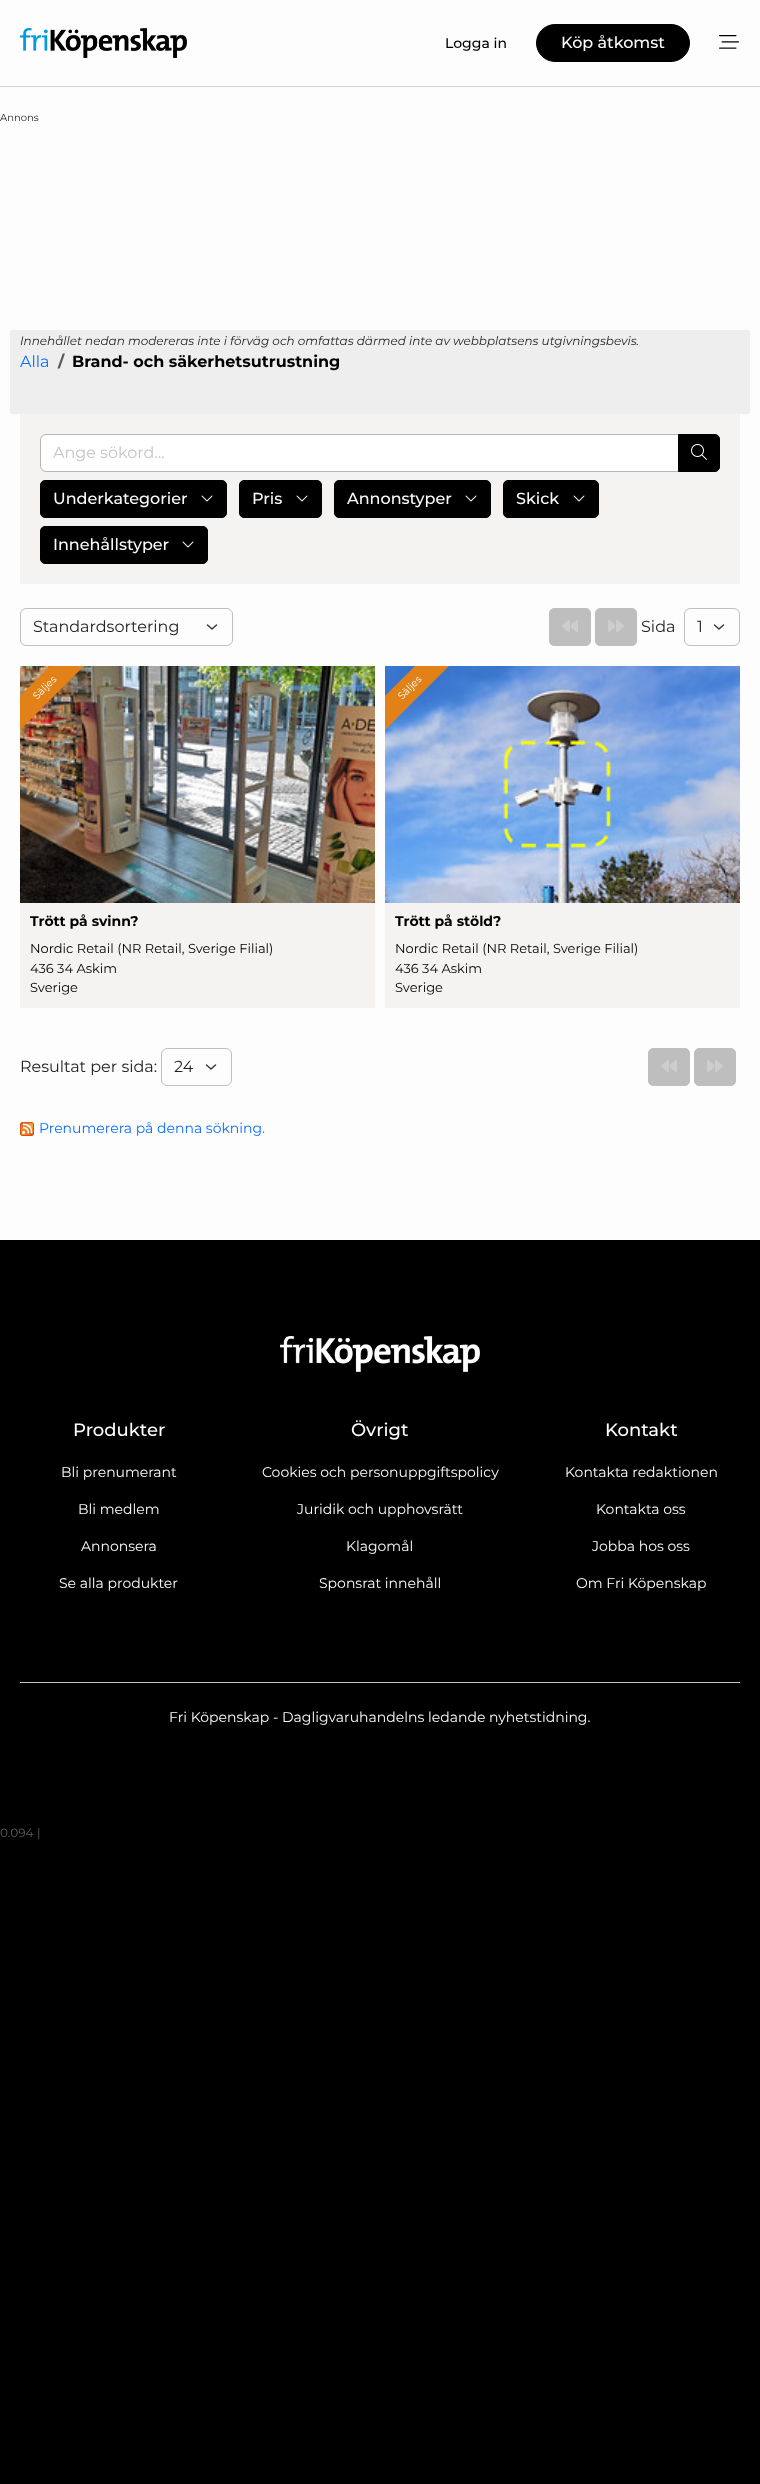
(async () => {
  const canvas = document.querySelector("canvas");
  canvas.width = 760;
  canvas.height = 2484;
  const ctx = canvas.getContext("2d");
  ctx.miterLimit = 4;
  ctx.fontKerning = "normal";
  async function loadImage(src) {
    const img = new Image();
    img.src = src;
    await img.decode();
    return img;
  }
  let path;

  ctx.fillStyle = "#000000";
  ctx.fillRect(0, 0, 760, 2484);
  for (const [x, y, w, h, color] of [
    [0, 87, 760, 1153, "#fdfdfd"],
    [0, 0, 760, 86, "#fdfdfd"],
    [0, 86, 760, 1, "#d1d1d1"],
  ]) {
    ctx.fillStyle = color;
    ctx.fillRect(x, y, w, h);
  }
  ctx.drawImage(await loadImage("img/1.png"), 20, 28, 167, 30);
  ctx.fillStyle = "#000000";
  ctx.beginPath();
  ctx.roundRect(536.5, 24.5, 153, 37, 18.5);
  ctx.fill();
  ctx.strokeStyle = "#000000";
  ctx.stroke();
  ctx.drawImage(await loadImage("img/2.png"), 719, 35, 20, 14);
  ctx.fillStyle = "#eeeeee";
  ctx.fillRect(10, 330, 740, 84);
  ctx.fillStyle = "#f5f3f1";
  ctx.fillRect(20, 414, 720, 170);
  ctx.fillStyle = "#ffffff";
  ctx.beginPath();
  ctx.roundRect(41, 435, 637, 36, [5, 0, 0, 5]);
  ctx.fill();
  ctx.beginPath();
  ctx.roundRect(40.5, 434.5, 638, 37, [5.5, 0, 0, 5.5]);
  ctx.strokeStyle = "rgba(0, 0, 0, 0.25)";
  ctx.stroke();
  ctx.fillStyle = "#000000";
  ctx.beginPath();
  ctx.roundRect(678.5, 434.5, 41, 37, [0, 4.5, 4.5, 0]);
  ctx.fill();
  ctx.strokeStyle = "#000000";
  ctx.stroke();
  ctx.drawImage(await loadImage("img/3.png"), 691, 444, 16, 16);
  ctx.beginPath();
  ctx.roundRect(40.5, 480.5, 186, 37, 4.5);
  ctx.fill();
  ctx.stroke();
  ctx.drawImage(await loadImage("img/4.png"), 201, 495, 12, 7);
  ctx.beginPath();
  ctx.roundRect(239.5, 480.5, 82, 37, 4.5);
  ctx.fill();
  ctx.stroke();
  ctx.drawImage(await loadImage("img/4.png"), 296, 495, 12, 7);
  ctx.beginPath();
  ctx.roundRect(334.5, 480.5, 156, 37, 4.5);
  ctx.fill();
  ctx.stroke();
  ctx.drawImage(await loadImage("img/4.png"), 465, 495, 12, 7);
  ctx.beginPath();
  ctx.roundRect(503.5, 480.5, 95, 37, 4.5);
  ctx.fill();
  ctx.stroke();
  ctx.drawImage(await loadImage("img/4.png"), 573, 495, 12, 7);
  ctx.beginPath();
  ctx.roundRect(40.5, 526.5, 167, 37, 4.5);
  ctx.fill();
  ctx.stroke();
  ctx.drawImage(await loadImage("img/4.png"), 182, 541, 12, 7);
  path = new Path2D("M207.5 625L212 629L216.5 625");
  ctx.strokeStyle = "#343a40";
  ctx.lineWidth = 1.5;
  ctx.lineCap = "round";
  ctx.lineJoin = "round";
  ctx.stroke(path);
  ctx.beginPath();
  ctx.roundRect(20.5, 608.5, 212, 37, 5.5);
  ctx.strokeStyle = "#bfbfbf";
  ctx.lineWidth = 1;
  ctx.lineJoin = "miter";
  ctx.stroke();
  ctx.fillStyle = "#bebebe";
  ctx.beginPath();
  ctx.roundRect(549.5, 608.5, 41, 37, 4.5);
  ctx.fill();
  ctx.strokeStyle = "#bebebe";
  ctx.stroke();
  ctx.drawImage(await loadImage("img/5.png"), 562, 620, 16, 12);
  ctx.beginPath();
  ctx.roundRect(595.5, 608.5, 41, 37, 4.5);
  ctx.fill();
  ctx.stroke();
  ctx.drawImage(await loadImage("img/6.png"), 608, 620, 16, 12);
  path = new Path2D("M714.5 625L719 629L723.5 625");
  ctx.strokeStyle = "#343a40";
  ctx.lineWidth = 1.5;
  ctx.lineJoin = "round";
  ctx.stroke(path);
  ctx.beginPath();
  ctx.roundRect(684.5, 608.5, 55, 37, 5.5);
  ctx.strokeStyle = "#bfbfbf";
  ctx.lineWidth = 1;
  ctx.lineJoin = "miter";
  ctx.stroke();
  ctx.fillStyle = "#f5f3f1";
  ctx.fillRect(20, 903, 355, 105);
  ctx.drawImage(await loadImage("img/7.png"), 20, 666, 355, 237);
  ctx.save();
  ctx.beginPath();
  ctx.rect(20, 666, 150, 150);
  ctx.clip();
  ctx.fillStyle = "#e28117";
  path = new Path2D("M-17 733L90 626L107 643L0 750Z");
  ctx.fill(path);
  ctx.restore();
  ctx.fillRect(385, 903, 355, 105);
  ctx.drawImage(await loadImage("img/8.png"), 385, 666, 355, 237);
  ctx.save();
  ctx.beginPath();
  ctx.rect(385, 666, 150, 150);
  ctx.clip();
  ctx.fillStyle = "#e28117";
  path = new Path2D("M348 733L455 626L472 643L365 750Z");
  ctx.fill(path);
  ctx.restore();
  path = new Path2D("M206.5 1065L211 1069L215.5 1065");
  ctx.strokeStyle = "#343a40";
  ctx.lineWidth = 1.5;
  ctx.lineJoin = "round";
  ctx.stroke(path);
  ctx.beginPath();
  ctx.roundRect(161.5, 1048.5, 70, 37, 5.5);
  ctx.strokeStyle = "#bfbfbf";
  ctx.lineWidth = 1;
  ctx.lineJoin = "miter";
  ctx.stroke();
  ctx.fillStyle = "#bebebe";
  ctx.beginPath();
  ctx.roundRect(648.5, 1048.5, 41, 37, 4.5);
  ctx.fill();
  ctx.strokeStyle = "#bebebe";
  ctx.stroke();
  ctx.drawImage(await loadImage("img/5.png"), 661, 1060, 16, 12);
  ctx.beginPath();
  ctx.roundRect(694.5, 1048.5, 41, 37, 4.5);
  ctx.fill();
  ctx.stroke();
  ctx.drawImage(await loadImage("img/6.png"), 707, 1060, 16, 12);
  ctx.drawImage(await loadImage("img/9.png"), 20, 1122, 14, 14);
  ctx.drawImage(await loadImage("img/10.png"), 280, 1336, 200, 36);
  ctx.fillStyle = "#c6c5c4";
  ctx.fillRect(20, 1682, 720, 1);
  ctx.font = "500 14px Montserrat";
  ctx.fillStyle = "#000000";
  ctx.fillText("Logga in", 445, 48);
  ctx.font = "500 16px Montserrat";
  ctx.fillStyle = "#fdfdfd";
  ctx.fillText("Köp åtkomst", 561, 48);
  ctx.font = "10px Montserrat";
  ctx.fillStyle = "#212529";
  ctx.fillText("Annons", 0, 121);
  ctx.font = "italic 12px Montserrat";
  ctx.fillText("Innehållet nedan modereras inte i förväg och omfattas därmed inte av webbplatsens utgivningsbevis.", 20, 345);
  ctx.font = "16px Montserrat";
  ctx.fillStyle = "#0d6efd";
  ctx.fillText("Alla", 20, 367);
  ctx.font = "bold 16px Montserrat";
  ctx.fillStyle = "#54575a";
  ctx.fillText("/", 58, 367);
  ctx.fillStyle = "#000000";
  ctx.fillText("Brand- och säkerhetsutrustning", 72, 367);
  ctx.font = "16px Montserrat";
  ctx.fillStyle = "#c6c5c4";
  ctx.fillText("Ange sökord...", 53, 458);
  ctx.font = "500 16px Montserrat";
  ctx.fillStyle = "#fdfdfd";
  for (const [text, x, y] of [
    ["Underkategorier", 53, 504],
    ["Pris", 252, 504],
    ["Annonstyper", 347, 504],
    ["Skick", 516, 504],
    ["Innehållstyper", 53, 550],
  ]) {
    ctx.fillText(text, x, y);
  }
  ctx.font = "16px Montserrat";
  ctx.fillStyle = "#212529";
  for (const [text, x, y] of [
    ["Standardsortering", 33, 632],
    ["Sida", 641, 632],
    ["1", 697, 632],
  ]) {
    ctx.fillText(text, x, y);
  }
  ctx.font = "10px Montserrat";
  ctx.fillStyle = "#fdfdfd";
  ctx.save();
  ctx.translate(37, 700);
  ctx.rotate(-45 * Math.PI / 180);
  ctx.fillText("Säljes", 0, 0);
  ctx.restore();
  ctx.font = "bold 14px Montserrat";
  ctx.fillStyle = "#000000";
  ctx.fillText("Trött på svinn?", 30, 926);
  ctx.font = "13px Montserrat";
  for (const [text, x, y] of [
    ["Nordic Retail (NR Retail, Sverige Filial)", 30, 953],
    ["436 34 Askim", 30, 973],
    ["Sverige", 30, 992],
  ]) {
    ctx.fillText(text, x, y);
  }
  ctx.font = "10px Montserrat";
  ctx.fillStyle = "#fdfdfd";
  ctx.save();
  ctx.translate(402, 700);
  ctx.rotate(-45 * Math.PI / 180);
  ctx.fillText("Säljes", 0, 0);
  ctx.restore();
  ctx.font = "bold 14px Montserrat";
  ctx.fillStyle = "#000000";
  ctx.fillText("Trött på stöld?", 395, 926);
  ctx.font = "13px Montserrat";
  for (const [text, x, y] of [
    ["Nordic Retail (NR Retail, Sverige Filial)", 395, 953],
    ["436 34 Askim", 395, 973],
    ["Sverige", 395, 992],
  ]) {
    ctx.fillText(text, x, y);
  }
  ctx.font = "16px Montserrat";
  ctx.fillStyle = "#212529";
  ctx.fillText("Resultat per sida:", 20, 1072);
  ctx.fillText("24", 174, 1072);
  ctx.font = "14px Montserrat";
  ctx.fillStyle = "#0d6efd";
  ctx.fillText("Prenumerera på denna sökning.", 39, 1133);
  ctx.font = "500 18px Montserrat";
  ctx.fillStyle = "#fdfdfd";
  ctx.fillText("Produkter", 73, 1436);
  ctx.font = "14px Montserrat";
  for (const [text, x, y] of [
    ["Bli prenumerant", 61, 1477],
    ["Bli medlem", 78, 1514],
    ["Annonsera", 81, 1551],
    ["Se alla produkter", 59, 1588],
  ]) {
    ctx.fillText(text, x, y);
  }
  ctx.font = "500 18px Montserrat";
  ctx.fillText("Övrigt", 351, 1436);
  ctx.font = "14px Montserrat";
  for (const [text, x, y] of [
    ["Cookies och personuppgiftspolicy", 262, 1477],
    ["Juridik och upphovsrätt", 297, 1514],
    ["Klagomål", 346, 1551],
    ["Sponsrat innehåll", 319, 1588],
  ]) {
    ctx.fillText(text, x, y);
  }
  ctx.font = "500 18px Montserrat";
  ctx.fillText("Kontakt", 605, 1436);
  ctx.font = "14px Montserrat";
  for (const [text, x, y] of [
    ["Kontakta redaktionen", 565, 1477],
    ["Kontakta oss", 596, 1514],
    ["Jobba hos oss", 592, 1551],
    ["Om Fri Köpenskap", 576, 1588],
    ["Fri Köpenskap - Dagligvaruhandelns ledande nyhetstidning.", 169, 1722],
  ]) {
    ctx.fillText(text, x, y);
  }
  ctx.font = "12px Montserrat";
  ctx.fillStyle = "#636262";
  ctx.fillText("0.094", 0, 1837);
  ctx.fillText("|", 37, 1837);
})();
